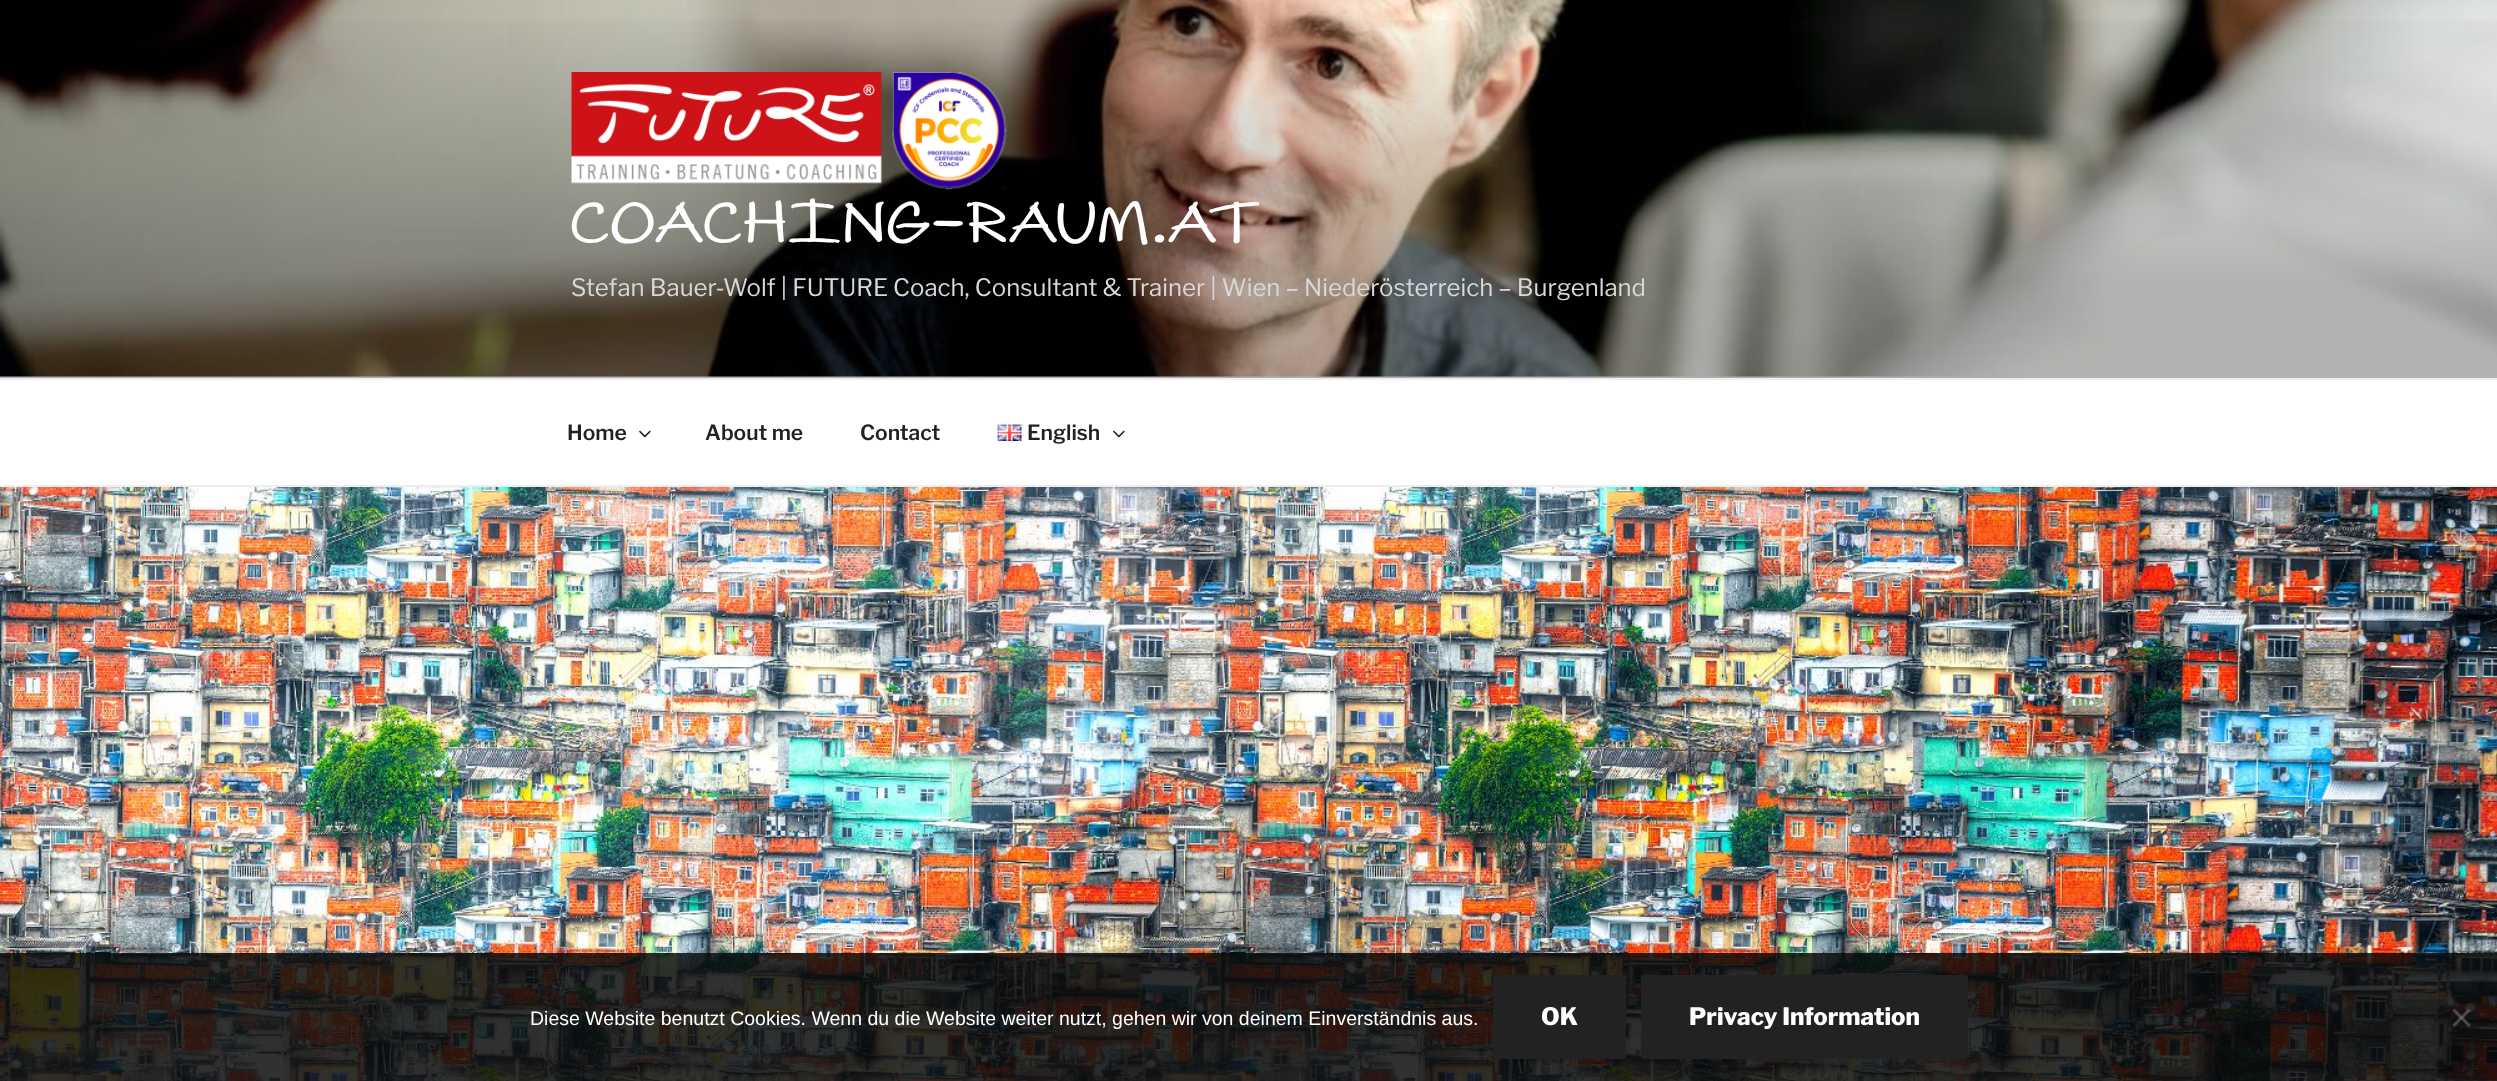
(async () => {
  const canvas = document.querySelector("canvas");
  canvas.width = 2497;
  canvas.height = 1081;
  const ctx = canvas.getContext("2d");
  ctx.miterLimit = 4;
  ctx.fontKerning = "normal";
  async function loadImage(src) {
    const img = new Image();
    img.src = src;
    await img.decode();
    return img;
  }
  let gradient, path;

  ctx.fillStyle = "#ffffff";
  ctx.fillRect(0, 0, 2497, 1081);
  ctx.fillStyle = "#fafafa";
  ctx.fillRect(0, 376, 2497, 2);
  ctx.drawImage(await loadImage("img/1.png"), 0, 0, 2497, 377);
  gradient = ctx.createLinearGradient(1249, 0, 1249, 378);
  gradient.addColorStop(0, "rgba(0, 0, 0, 0)");
  gradient.addColorStop(0.75, "rgba(0, 0, 0, 0.3)");
  gradient.addColorStop(1, "rgba(0, 0, 0, 0.3)");
  ctx.fillStyle = gradient;
  ctx.fillRect(0, 20, 2497, 358);
  ctx.drawImage(await loadImage("img/2.png"), 571, 72, 436, 118);
  ctx.fillStyle = "#eeeeee";
  ctx.fillRect(0, 378, 2497, 2);
  ctx.fillRect(0, 485, 2497, 2);
  ctx.drawImage(await loadImage("img/3.png"), 639, 430, 12, 8);
  ctx.drawImage(await loadImage("img/4.png"), 997, 424, 25, 17);
  ctx.drawImage(await loadImage("img/3.png"), 1113, 430, 12, 8);
  ctx.drawImage(await loadImage("img/5.png"), 0, 487, 2497, 594);
  ctx.fillStyle = "rgba(10, 10, 10, 0.84)";
  ctx.fillRect(0, 953, 2497, 128);
  ctx.fillStyle = "#222222";
  ctx.beginPath();
  ctx.roundRect(1493, 975, 133, 84, 3);
  ctx.fill();
  ctx.beginPath();
  ctx.roundRect(1641, 975, 327, 84, 3);
  ctx.fill();
  ctx.fillStyle = "rgba(128, 128, 128, 0.5)";
  path = new Path2D("M2468.5 1008.5L2470.5 1011L2454.5 1027L2452.5 1024.5Z");
  ctx.fill(path);
  path = new Path2D("M2452.5 1011L2454.5 1008.5L2470.5 1024.5L2468.5 1027Z");
  ctx.fill(path);
  ctx.letterSpacing = "4.3px";
  ctx.font = "bold 54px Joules";
  ctx.fillStyle = "#ffffff";
  ctx.fillText("COACHING-RAUM.AT", 571, 242);
  ctx.letterSpacing = "0px";
  ctx.font = "100 24px Libre Franklin";
  ctx.fillStyle = "#d9d8d7";
  ctx.fillText("Stefan Bauer-Wolf | FUTURE Coach, Consultant & Trainer | Wien – Niederösterreich – Burgenland", 571, 296);
  ctx.font = "100 21px 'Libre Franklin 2'";
  ctx.fillStyle = "#222222";
  for (const [text, x, y] of [
    ["Home", 567, 440],
    ["About me", 705, 440],
    ["Contact", 860, 440],
    ["English", 1027, 440],
  ]) {
    ctx.fillText(text, x, y);
  }
  ctx.font = "19.5px Liberation Sans";
  ctx.fillStyle = "#ffffff";
  ctx.fillText("Diese Website benutzt Cookies. Wenn du die Website weiter nutzt, gehen wir von deinem Einverständnis aus.", 530, 1025);
  ctx.font = "100 24px 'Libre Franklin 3'";
  ctx.fillText("OK", 1541, 1025);
  ctx.fillText("Privacy Information", 1689, 1025);
})();
